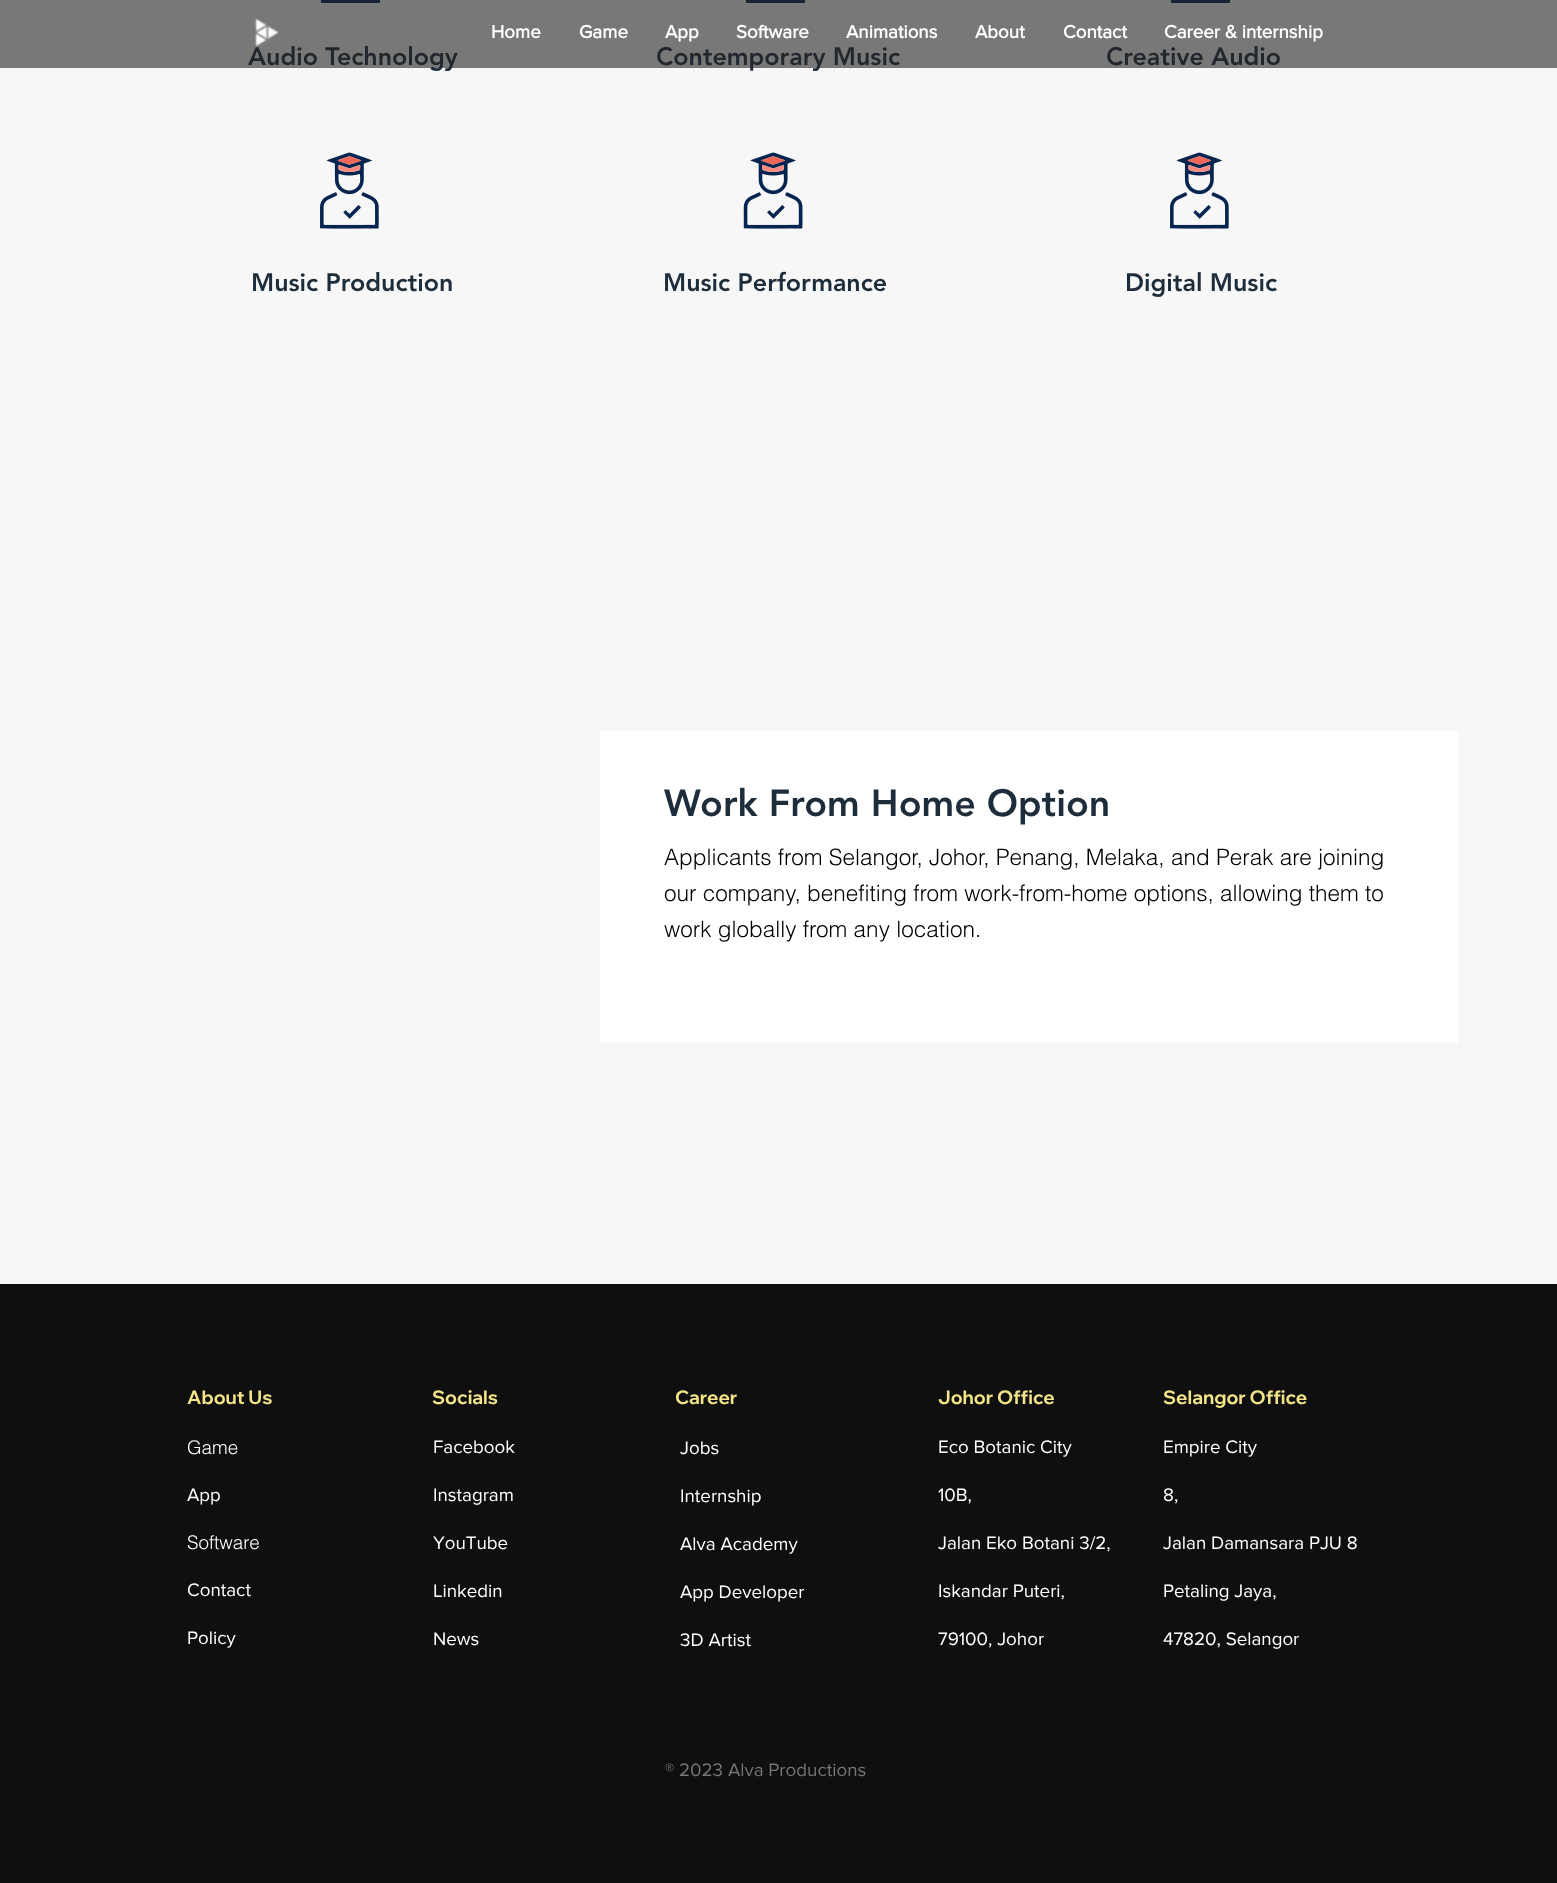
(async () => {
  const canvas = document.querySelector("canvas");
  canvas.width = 1557;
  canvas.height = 1883;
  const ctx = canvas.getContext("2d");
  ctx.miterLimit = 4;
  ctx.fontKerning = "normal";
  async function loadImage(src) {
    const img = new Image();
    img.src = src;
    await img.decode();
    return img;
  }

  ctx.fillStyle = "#f7f7f7";
  ctx.fillRect(0, 0, 1557, 1883);
  for (const [x, y, w, h, color] of [
    [321, 0, 59, 3, "#05244f"],
    [746, 0, 59, 3, "#05244f"],
    [1171, 0, 59, 3, "#05244f"],
  ]) {
    ctx.fillStyle = color;
    ctx.fillRect(x, y, w, h);
  }
  ctx.drawImage(await loadImage("img/2.png"), 320, 152, 59, 77);
  ctx.drawImage(await loadImage("img/3.png"), 743, 152, 60, 77);
  ctx.drawImage(await loadImage("img/2.png"), 1170, 152, 59, 77);
  ctx.fillStyle = "#ffffff";
  ctx.fillRect(600, 731, 858, 312);
  ctx.fillStyle = "#0f0f0f";
  ctx.fillRect(0, 1284, 1557, 599);
  ctx.font = "900 25px 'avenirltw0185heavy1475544'";
  ctx.fillStyle = "#1e2d3b";
  for (const [text, x, y] of [
    ["Audio Technology", 248, 65],
    ["Contemporary Music", 656, 65],
    ["Creative Audio", 1106, 65],
  ]) {
    ctx.fillText(text, x, y);
  }
  ctx.fillStyle = "rgba(35, 35, 35, 0.6)";
  ctx.fillRect(0, 0, 1557, 68);
  ctx.font = "bold 18.75px 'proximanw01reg'";
  ctx.fillStyle = "#ffffff";
  for (const [text, x, y] of [
    ["Career & internship", 1164, 38],
    ["Contact", 1063, 38],
    ["About", 975, 38],
    ["Animations", 846, 38],
    ["Software", 736, 38],
    ["App", 665, 38],
    ["Game", 579, 38],
    ["Home", 491, 38],
  ]) {
    ctx.fillText(text, x, y);
  }
  ctx.drawImage(await loadImage("img/1.png"), 254, 18, 25, 29);
  ctx.font = "900 25px 'avenirltw0185heavy1475544'";
  ctx.fillStyle = "#1e2d3b";
  for (const [text, x, y] of [
    ["Music Production", 251, 291],
    ["Music Performance", 663, 291],
    ["Digital Music", 1125, 291],
  ]) {
    ctx.fillText(text, x, y);
  }
  ctx.font = "900 37.5px 'avenirltw0185heavy1475544'";
  ctx.fillText("Work From Home Option", 664, 816);
  ctx.font = "300 22.5px helvetica";
  ctx.fillStyle = "#000000";
  for (const [text, x, y] of [
    ["Applicants from Selangor, Johor, Penang, Melaka, and Perak are joining", 664, 865],
    ["our company, benefiting from work-from-home options, allowing them to", 664, 901],
    ["work globally from any location.", 664, 937],
  ]) {
    ctx.fillText(text, x, y);
  }
  ctx.font = "bold 18.75px Wix Madefor Display";
  ctx.fillStyle = "#f3e389";
  ctx.fillText("About Us", 187, 1404);
  ctx.font = "300 18.75px helvetica";
  ctx.fillStyle = "#ffffff";
  ctx.fillText("Game", 187, 1454);
  ctx.font = "18.75px 'proximanw01reg'";
  ctx.fillText("App", 187, 1501);
  ctx.font = "300 18.75px helvetica";
  ctx.fillText("Software", 187, 1549);
  ctx.font = "18.75px 'proximanw01reg'";
  ctx.fillText("Contact", 187, 1596);
  ctx.fillText("Policy", 187, 1644);
  ctx.font = "bold 18.75px Wix Madefor Display";
  ctx.fillStyle = "#f3e389";
  ctx.fillText("Socials", 432, 1404);
  ctx.font = "18.75px 'proximanw01reg'";
  ctx.fillStyle = "#ffffff";
  for (const [text, x, y] of [
    ["Facebook", 433, 1453],
    ["Instagram", 433, 1501],
    ["YouTube", 433, 1549],
    ["Linkedin", 433, 1597],
    ["News", 433, 1645],
  ]) {
    ctx.fillText(text, x, y);
  }
  ctx.font = "bold 18.75px Wix Madefor Display";
  ctx.fillStyle = "#f3e389";
  ctx.fillText("Career", 675, 1404);
  ctx.font = "18.75px 'proximanw01reg'";
  ctx.fillStyle = "#ffffff";
  for (const [text, x, y] of [
    ["Jobs", 680, 1454],
    ["Internship", 680, 1502],
    ["Alva Academy", 680, 1550],
    ["App Developer", 680, 1598],
    ["3D Artist", 680, 1646],
  ]) {
    ctx.fillText(text, x, y);
  }
  ctx.fillStyle = "#757575";
  ctx.fillText("® 2023 Alva Productions", 665, 1776);
  ctx.font = "bold 18.75px Wix Madefor Display";
  ctx.fillStyle = "#f3e389";
  ctx.fillText("Johor Office", 938, 1404);
  ctx.font = "18.75px 'proximanw01reg'";
  ctx.fillStyle = "#ffffff";
  for (const [text, x, y] of [
    ["Eco Botanic City", 938, 1453],
    ["10B,", 938, 1501],
    ["Jalan Eko Botani 3/2,", 938, 1549],
    ["Iskandar Puteri,", 938, 1597],
    ["79100, Johor", 938, 1645],
  ]) {
    ctx.fillText(text, x, y);
  }
  ctx.font = "bold 18.75px Wix Madefor Display";
  ctx.fillStyle = "#f3e389";
  ctx.fillText("Selangor Office", 1163, 1404);
  ctx.font = "18.75px 'proximanw01reg'";
  ctx.fillStyle = "#ffffff";
  for (const [text, x, y] of [
    ["Empire City", 1163, 1453],
    ["8,", 1163, 1501],
    ["Jalan Damansara PJU 8", 1163, 1549],
    ["Petaling Jaya,", 1163, 1597],
    ["47820, Selangor", 1163, 1645],
  ]) {
    ctx.fillText(text, x, y);
  }
})();
